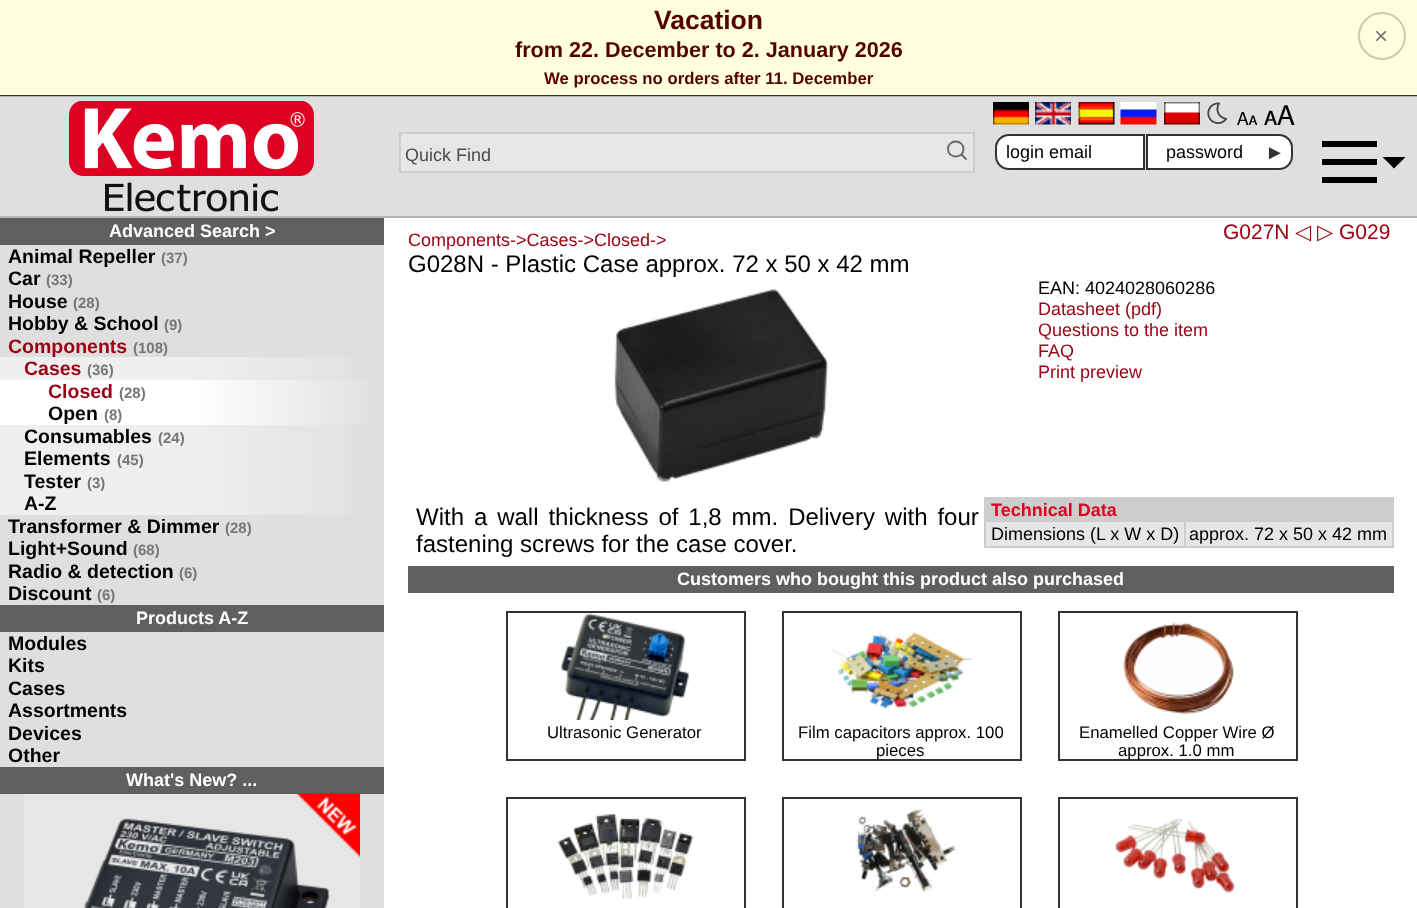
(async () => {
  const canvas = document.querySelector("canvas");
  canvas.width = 1417;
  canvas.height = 908;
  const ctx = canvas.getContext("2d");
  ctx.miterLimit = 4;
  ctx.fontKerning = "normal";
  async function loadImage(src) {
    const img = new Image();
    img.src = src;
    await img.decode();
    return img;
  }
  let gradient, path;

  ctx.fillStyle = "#dfdfdf";
  ctx.fillRect(0, 0, 1417, 908);
  for (const [x, y, w, h, color] of [
    [0, 0, 1417, 95, "#ffffdd"],
    [0, 95, 1417, 1, "#333333"],
    [0, 96, 1417, 1, "#b4b4b4"],
  ]) {
    ctx.fillStyle = color;
    ctx.fillRect(x, y, w, h);
  }
  ctx.beginPath();
  ctx.arc(1382, 36, 23, 0, Math.PI * 2);
  ctx.strokeStyle = "#ccccaa";
  ctx.lineWidth = 2;
  ctx.stroke();
  ctx.fillRect(0, 216, 1417, 2);
  ctx.drawImage(await loadImage("img/1.png"), 69, 101, 245, 111);
  ctx.fillStyle = "#e6e6e6";
  ctx.beginPath();
  ctx.rect(400, 133, 574, 39);
  ctx.fill();
  ctx.strokeStyle = "#cdcdcd";
  ctx.stroke();
  path = new Path2D("M961.5 154.5L966 159M963.5 149C963.5 159 948 159 948 149C948 139 963.5 139 963.5 149Z");
  ctx.strokeStyle = "#666666";
  ctx.lineWidth = 1.8;
  ctx.lineCap = "round";
  ctx.lineJoin = "round";
  ctx.stroke(path);
  ctx.drawImage(await loadImage("img/2.png"), 993, 102, 36, 23);
  ctx.drawImage(await loadImage("img/3.png"), 1035, 102, 36, 23);
  ctx.drawImage(await loadImage("img/4.png"), 1078, 102, 37, 23);
  ctx.drawImage(await loadImage("img/5.png"), 1120, 102, 37, 23);
  ctx.drawImage(await loadImage("img/6.png"), 1164, 102, 36, 23);
  ctx.drawImage(await loadImage("img/7.png"), 1207, 102, 21, 22);
  ctx.fillStyle = "#ffffff";
  ctx.beginPath();
  ctx.roundRect(996, 135, 148, 34, [13, 0, 0, 13]);
  ctx.fill();
  ctx.strokeStyle = "#323232";
  ctx.lineWidth = 2;
  ctx.lineJoin = "miter";
  ctx.stroke();
  ctx.beginPath();
  ctx.roundRect(1147, 135, 145, 34, [0, 13, 13, 0]);
  ctx.fill();
  ctx.stroke();
  ctx.fillStyle = "#000000";
  ctx.fillRect(1322, 141, 55, 6);
  ctx.fillRect(1322, 159, 55, 6);
  path = new Path2D("M1382.5 157L1394 168.5L1405.5 157Z");
  ctx.fill(path);
  ctx.fillRect(1322, 177, 55, 6);
  ctx.fillStyle = "#5f5f5f";
  ctx.fillRect(0, 218, 384, 27);
  gradient = ctx.createLinearGradient(0, 368, 384, 368);
  gradient.addColorStop(0, "#efefef");
  gradient.addColorStop(0.5, "#efefef");
  gradient.addColorStop(1, "#dfdfdf");
  ctx.fillStyle = gradient;
  ctx.fillRect(0, 357, 354, 23);
  gradient = ctx.createLinearGradient(0, 391, 384, 391);
  gradient.addColorStop(0, "#ffffff");
  gradient.addColorStop(0.5, "#ffffff");
  gradient.addColorStop(1, "#dfdfdf");
  ctx.fillStyle = gradient;
  ctx.fillRect(0, 380, 369, 22);
  gradient = ctx.createLinearGradient(0, 413, 384, 413);
  gradient.addColorStop(0, "#ffffff");
  gradient.addColorStop(0.5, "#ffffff");
  gradient.addColorStop(1, "#dfdfdf");
  ctx.fillStyle = gradient;
  ctx.fillRect(0, 402, 369, 23);
  gradient = ctx.createLinearGradient(0, 436, 384, 436);
  gradient.addColorStop(0, "#efefef");
  gradient.addColorStop(0.5, "#efefef");
  gradient.addColorStop(1, "#dfdfdf");
  ctx.fillStyle = gradient;
  ctx.fillRect(0, 425, 354, 22);
  gradient = ctx.createLinearGradient(0, 458, 384, 458);
  gradient.addColorStop(0, "#efefef");
  gradient.addColorStop(0.5, "#efefef");
  gradient.addColorStop(1, "#dfdfdf");
  ctx.fillStyle = gradient;
  ctx.fillRect(0, 447, 354, 23);
  gradient = ctx.createLinearGradient(0, 481, 384, 481);
  gradient.addColorStop(0, "#efefef");
  gradient.addColorStop(0.5, "#efefef");
  gradient.addColorStop(1, "#dfdfdf");
  ctx.fillStyle = gradient;
  ctx.fillRect(0, 470, 354, 22);
  gradient = ctx.createLinearGradient(0, 503, 384, 503);
  gradient.addColorStop(0, "#efefef");
  gradient.addColorStop(0.5, "#efefef");
  gradient.addColorStop(1, "#dfdfdf");
  ctx.fillStyle = gradient;
  ctx.fillRect(0, 492, 354, 23);
  for (const [x, y, w, h, color] of [
    [0, 605, 384, 27, "#5f5f5f"],
    [0, 767, 384, 27, "#5f5f5f"],
    [24, 794, 336, 114, "#e6e6e6"],
  ]) {
    ctx.fillStyle = color;
    ctx.fillRect(x, y, w, h);
  }
  ctx.drawImage(await loadImage("img/8.png"), 83, 793, 277, 115);
  ctx.fillStyle = "#ffffff";
  ctx.fillRect(384, 218, 1033, 690);
  ctx.drawImage(await loadImage("img/9.png"), 614, 289, 215, 193);
  for (const [x, y, w, h, color] of [
    [984, 497, 408, 49, "#cdcdcd"],
    [1392, 497, 2, 51, "#cdcdcd"],
    [984, 546, 410, 2, "#cdcdcd"],
    [986, 522, 198, 24, "#e6e6e6"],
    [1186, 522, 206, 24, "#e6e6e6"],
    [408, 566, 986, 27, "#5f5f5f"],
  ]) {
    ctx.fillStyle = color;
    ctx.fillRect(x, y, w, h);
  }
  ctx.strokeStyle = "#333333";
  ctx.strokeRect(507, 612, 238, 148);
  ctx.drawImage(await loadImage("img/10.png"), 560, 613, 129, 107);
  ctx.strokeRect(783, 612, 238, 148);
  ctx.drawImage(await loadImage("img/11.png"), 831, 632, 142, 77);
  ctx.strokeRect(1059, 612, 238, 148);
  ctx.drawImage(await loadImage("img/12.png"), 1123, 622, 111, 93);
  ctx.strokeRect(507, 798, 238, 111);
  ctx.drawImage(await loadImage("img/13.png"), 557, 813, 137, 86);
  ctx.strokeRect(783, 798, 238, 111);
  ctx.drawImage(await loadImage("img/14.png"), 856, 808, 100, 84);
  ctx.strokeRect(1059, 798, 238, 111);
  ctx.drawImage(await loadImage("img/15.png"), 1114, 818, 121, 75);
  ctx.font = "bold 26.5px Liberation Sans";
  ctx.fillStyle = "#550000";
  ctx.fillText("Vacation", 654, 29);
  ctx.font = "24px Liberation Sans";
  ctx.fillStyle = "#777777";
  ctx.fillText("×", 1374, 44);
  ctx.font = "bold 21.6px Liberation Sans";
  ctx.fillStyle = "#550000";
  ctx.fillText("from 22. December to 2. January 2026", 515, 57);
  ctx.font = "bold 16.75px Liberation Sans";
  ctx.fillText("We process no orders after 11. December", 544, 84);
  ctx.font = "18px Liberation Sans";
  ctx.fillStyle = "#4b4b4b";
  ctx.fillText("Quick Find", 405, 161);
  ctx.font = "18px FreeSans";
  ctx.fillStyle = "#000000";
  ctx.fillText("🗛", 1237, 125);
  ctx.font = "27px FreeSans";
  ctx.fillText("🗚", 1264, 125);
  ctx.font = "18px Liberation Sans";
  ctx.fillText("login email", 1006, 158);
  ctx.fillText("password", 1166, 158);
  ctx.font = "20px Liberation Sans";
  ctx.fillStyle = "#323232";
  ctx.fillText("►", 1265, 159);
  ctx.font = "bold 18px Liberation Sans";
  ctx.fillStyle = "#ffffff";
  ctx.fillText("Advanced Search >", 109, 237);
  ctx.font = "bold 19.5px Liberation Sans";
  ctx.fillStyle = "#000000";
  ctx.fillText("Animal Repeller", 8, 263);
  ctx.font = "bold 15px Liberation Sans";
  ctx.fillStyle = "#777777";
  ctx.fillText("(37)", 161, 263);
  ctx.font = "bold 19.5px Liberation Sans";
  ctx.fillStyle = "#000000";
  ctx.fillText("Car", 8, 285);
  ctx.font = "bold 15px Liberation Sans";
  ctx.fillStyle = "#777777";
  ctx.fillText("(33)", 46, 285);
  ctx.font = "bold 19.5px Liberation Sans";
  ctx.fillStyle = "#000000";
  ctx.fillText("House", 8, 308);
  ctx.font = "bold 15px Liberation Sans";
  ctx.fillStyle = "#777777";
  ctx.fillText("(28)", 73, 308);
  ctx.font = "bold 19.5px Liberation Sans";
  ctx.fillStyle = "#000000";
  ctx.fillText("Hobby & School", 8, 330);
  ctx.font = "bold 15px Liberation Sans";
  ctx.fillStyle = "#777777";
  ctx.fillText("(9)", 164, 330);
  ctx.font = "bold 19.5px Liberation Sans";
  ctx.fillStyle = "#990011";
  ctx.fillText("Components", 8, 353);
  ctx.font = "bold 15px Liberation Sans";
  ctx.fillStyle = "#777777";
  ctx.fillText("(108)", 133, 353);
  ctx.font = "bold 19.5px Liberation Sans";
  ctx.fillStyle = "#990011";
  ctx.fillText("Cases", 24, 375);
  ctx.font = "bold 15px Liberation Sans";
  ctx.fillStyle = "#777777";
  ctx.fillText("(36)", 87, 375);
  ctx.font = "bold 19.5px Liberation Sans";
  ctx.fillStyle = "#990011";
  ctx.fillText("Closed", 48, 398);
  ctx.font = "bold 15px Liberation Sans";
  ctx.fillStyle = "#777777";
  ctx.fillText("(28)", 119, 398);
  ctx.font = "bold 19.5px Liberation Sans";
  ctx.fillStyle = "#000000";
  ctx.fillText("Open", 48, 420);
  ctx.font = "bold 15px Liberation Sans";
  ctx.fillStyle = "#777777";
  ctx.fillText("(8)", 104, 420);
  ctx.font = "bold 19.5px Liberation Sans";
  ctx.fillStyle = "#000000";
  ctx.fillText("Consumables", 24, 443);
  ctx.font = "bold 15px Liberation Sans";
  ctx.fillStyle = "#777777";
  ctx.fillText("(24)", 158, 443);
  ctx.font = "bold 19.5px Liberation Sans";
  ctx.fillStyle = "#000000";
  ctx.fillText("Elements", 24, 465);
  ctx.font = "bold 15px Liberation Sans";
  ctx.fillStyle = "#777777";
  ctx.fillText("(45)", 117, 465);
  ctx.font = "bold 19.5px Liberation Sans";
  ctx.fillStyle = "#000000";
  ctx.fillText("Tester", 24, 488);
  ctx.font = "bold 15px Liberation Sans";
  ctx.fillStyle = "#777777";
  ctx.fillText("(3)", 87, 488);
  ctx.font = "bold 19.5px Liberation Sans";
  ctx.fillStyle = "#000000";
  ctx.fillText("A-Z", 24, 510);
  ctx.fillText("Transformer & Dimmer", 8, 533);
  ctx.font = "bold 15px Liberation Sans";
  ctx.fillStyle = "#777777";
  ctx.fillText("(28)", 225, 533);
  ctx.font = "bold 19.5px Liberation Sans";
  ctx.fillStyle = "#000000";
  ctx.fillText("Light+Sound", 8, 555);
  ctx.font = "bold 15px Liberation Sans";
  ctx.fillStyle = "#777777";
  ctx.fillText("(68)", 133, 555);
  ctx.font = "bold 19.5px Liberation Sans";
  ctx.fillStyle = "#000000";
  ctx.fillText("Radio & detection", 8, 578);
  ctx.font = "bold 15px Liberation Sans";
  ctx.fillStyle = "#777777";
  ctx.fillText("(6)", 179, 578);
  ctx.font = "bold 19.5px Liberation Sans";
  ctx.fillStyle = "#000000";
  ctx.fillText("Discount", 8, 600);
  ctx.font = "bold 15px Liberation Sans";
  ctx.fillStyle = "#777777";
  ctx.fillText("(6)", 97, 600);
  ctx.font = "bold 18px Liberation Sans";
  ctx.fillStyle = "#ffffff";
  ctx.fillText("Products A-Z", 136, 624);
  ctx.font = "bold 19.5px Liberation Sans";
  ctx.fillStyle = "#000000";
  for (const [text, x, y] of [
    ["Modules", 8, 650],
    ["Kits", 8, 672],
    ["Cases", 8, 695],
    ["Assortments", 8, 717],
    ["Devices", 8, 740],
    ["Other", 8, 762],
  ]) {
    ctx.fillText(text, x, y);
  }
  ctx.font = "bold 18px Liberation Sans";
  ctx.fillStyle = "#ffffff";
  ctx.fillText("What's New? ...", 126, 786);
  ctx.font = "18px Liberation Sans";
  ctx.fillStyle = "#990011";
  ctx.fillText("Components->Cases->Closed->", 408, 246);
  ctx.font = "21px Liberation Sans";
  ctx.fillText("G027N", 1223, 239);
  ctx.font = "21px DejaVu Sans";
  ctx.fillText("◁", 1295, 239);
  ctx.fillText("▷", 1317, 239);
  ctx.font = "21px Liberation Sans";
  ctx.fillText("G029", 1339, 239);
  ctx.font = "24px Liberation Sans";
  ctx.fillStyle = "#000000";
  ctx.fillText("G028N - Plastic Case approx. 72 x 50 x 42 mm", 408, 272);
  ctx.font = "18px Liberation Sans";
  ctx.fillText("EAN: 4024028060286", 1038, 294);
  ctx.fillStyle = "#990011";
  for (const [text, x, y] of [
    ["Datasheet (pdf)", 1038, 315],
    ["Questions to the item", 1038, 336],
    ["FAQ", 1038, 357],
    ["Print preview", 1038, 378],
  ]) {
    ctx.fillText(text, x, y);
  }
  ctx.wordSpacing = "3.25px";
  ctx.font = "24px Liberation Sans";
  ctx.fillStyle = "#000000";
  ctx.fillText("With a wall thickness of 1,8 mm. Delivery with four", 416, 525);
  ctx.wordSpacing = "0px";
  ctx.fillText("fastening screws for the case cover.", 416, 552);
  ctx.font = "bold 18px Liberation Sans";
  ctx.fillStyle = "#dd0022";
  ctx.fillText("Technical Data", 991, 516);
  ctx.font = "18px Liberation Sans";
  ctx.fillStyle = "#000000";
  ctx.fillText("Dimensions (L x W x D)", 991, 540);
  ctx.fillText("approx. 72 x 50 x 42 mm", 1189, 540);
  ctx.font = "bold 18px Liberation Sans";
  ctx.fillStyle = "#ffffff";
  ctx.fillText("Customers who bought this product also purchased", 677, 585);
  ctx.font = "16.75px Liberation Sans";
  ctx.fillStyle = "#000000";
  for (const [text, x, y] of [
    ["Ultrasonic Generator", 547, 738],
    ["Film capacitors approx. 100", 798, 738],
    ["pieces", 876, 756],
    ["Enamelled Copper Wire Ø", 1079, 738],
    ["approx. 1.0 mm", 1118, 756],
  ]) {
    ctx.fillText(text, x, y);
  }
})();
